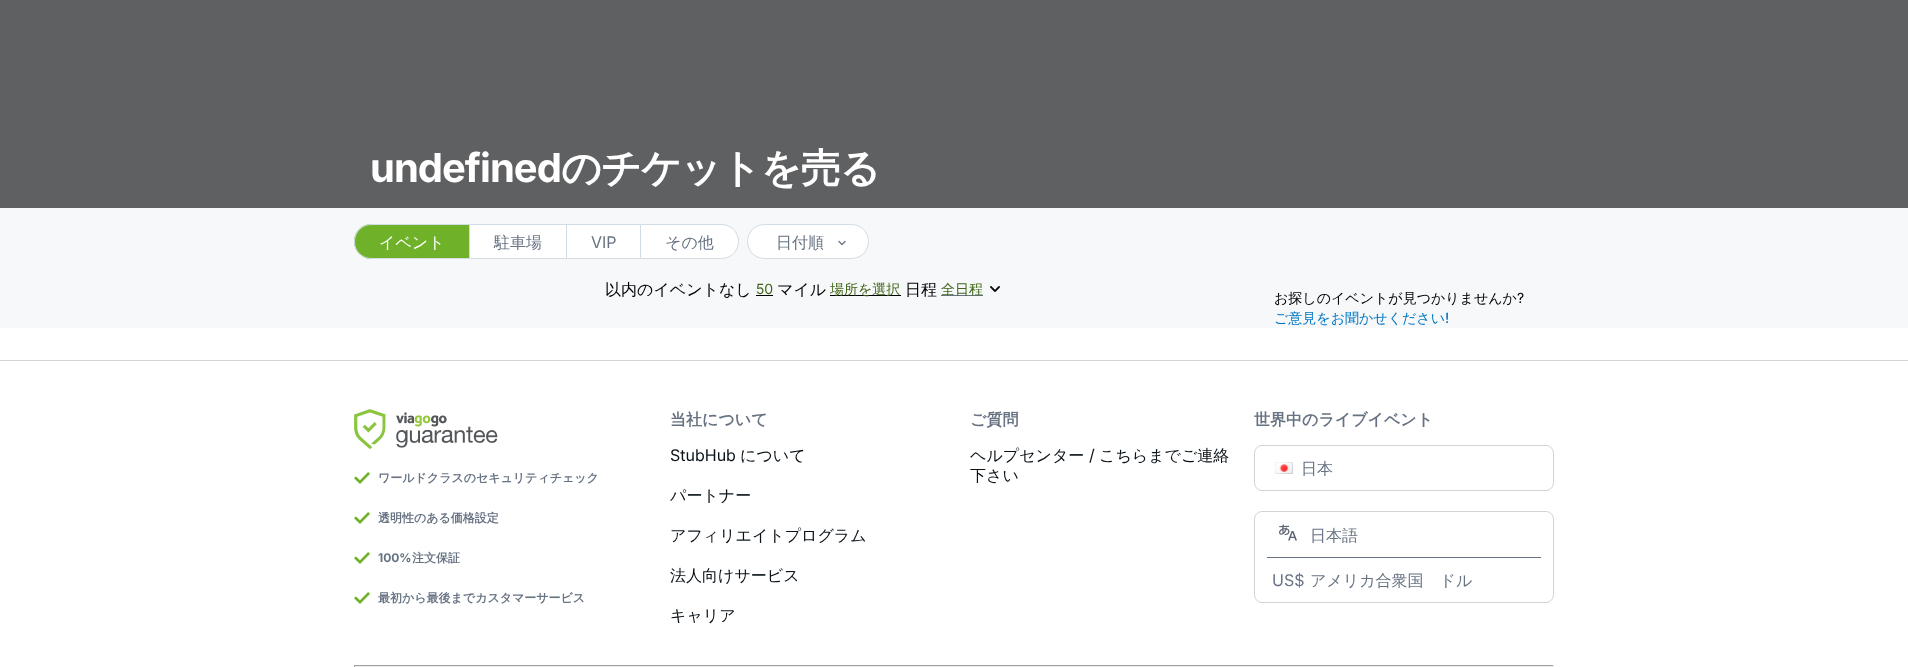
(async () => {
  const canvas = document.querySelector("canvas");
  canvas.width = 1908;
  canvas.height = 667;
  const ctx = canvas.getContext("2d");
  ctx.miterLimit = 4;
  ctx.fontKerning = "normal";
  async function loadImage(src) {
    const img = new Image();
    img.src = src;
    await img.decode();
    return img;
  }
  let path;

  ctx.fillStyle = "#ffffff";
  ctx.fillRect(0, 0, 1908, 667);
  ctx.fillStyle = "#5f6062";
  ctx.fillRect(0, 0, 1908, 208);
  ctx.fillStyle = "#f6f8f9";
  ctx.fillRect(0, 208, 1908, 120);
  ctx.fillStyle = "#6fb229";
  ctx.beginPath();
  ctx.roundRect(354, 224, 115, 35, [17.5, 0, 0, 17.5]);
  ctx.fill();
  ctx.fillStyle = "#d1dce5";
  path = new Path2D("M372 224H469V259H372C362 259 354 251 354 242C354 232 362 224 372 224ZM372 225H469V258H372C362 258 355 251 355 242C355 232 362 225 372 225Z");
  ctx.fill(path, "evenodd");
  for (const [x, y, w, h, color] of [
    [470, 225, 96, 33, "#ffffff"],
    [469, 224, 171, 1, "#d1dce5"],
    [469, 258, 171, 1, "#d1dce5"],
    [469, 224, 1, 35, "#d1dce5"],
    [567, 225, 73, 33, "#ffffff"],
    [566, 224, 1, 35, "#d1dce5"],
  ]) {
    ctx.fillStyle = color;
    ctx.fillRect(x, y, w, h);
  }
  ctx.fillStyle = "#ffffff";
  ctx.beginPath();
  ctx.roundRect(640.5, 224.5, 98, 34, [0, 17, 17, 0]);
  ctx.fill();
  ctx.strokeStyle = "#d1dce5";
  ctx.stroke();
  ctx.beginPath();
  ctx.roundRect(747.5, 224.5, 121, 34, 17);
  ctx.fill();
  ctx.stroke();
  ctx.drawImage(await loadImage("img/1.png"), 838, 240, 8, 6);
  for (const [x, y, w, h, color] of [
    [756, 295, 17, 1, "#000000"],
    [830, 295, 71, 1, "#000000"],
    [941, 295, 42, 1, "#677383"],
  ]) {
    ctx.fillStyle = color;
    ctx.fillRect(x, y, w, h);
  }
  ctx.drawImage(await loadImage("img/2.png"), 990, 286, 10, 6);
  ctx.fillStyle = "#cfd4d9";
  ctx.fillRect(0, 360, 1908, 1);
  ctx.drawImage(await loadImage("img/3.png"), 354, 409, 144, 41);
  ctx.drawImage(await loadImage("img/4.png"), 354, 472, 16, 12);
  ctx.drawImage(await loadImage("img/4.png"), 354, 512, 16, 12);
  ctx.drawImage(await loadImage("img/4.png"), 354, 552, 16, 12);
  ctx.drawImage(await loadImage("img/4.png"), 354, 592, 16, 12);
  ctx.beginPath();
  ctx.roundRect(1254.5, 445.5, 299, 45, 7.5);
  ctx.strokeStyle = "#cfd4d9";
  ctx.stroke();
  ctx.drawImage(await loadImage("img/5.png"), 1275, 462, 18, 12);
  ctx.beginPath();
  ctx.roundRect(1254.5, 511.5, 299, 91, 7.5);
  ctx.stroke();
  ctx.fillStyle = "#677383";
  ctx.fillRect(1267, 557, 274, 1);
  ctx.drawImage(await loadImage("img/6.png"), 1279, 524, 18, 17);
  for (const [x, y, w, h, color] of [
    [354, 665, 1200, 1, "#9f9f9f"],
    [1553, 665, 1, 2, "#eeeeee"],
    [354, 666, 1200, 1, "#eeeeee"],
    [354, 665, 1, 2, "#9f9f9f"],
  ]) {
    ctx.fillStyle = color;
    ctx.fillRect(x, y, w, h);
  }
  ctx.letterSpacing = "-1px";
  ctx.font = "bold 40px Inter";
  ctx.fillStyle = "#ffffff";
  ctx.fillText("undefined", 370, 182);
  ctx.font = "bold 40px WenQuanYi Zen Hei";
  ctx.fillText("のチケットを売る", 561, 182);
  ctx.letterSpacing = "0px";
  ctx.font = "500 16px WenQuanYi Zen Hei";
  ctx.fillText("イベント", 379, 248);
  ctx.fillStyle = "#677383";
  ctx.fillText("駐車場", 494, 248);
  ctx.font = "16px Inter";
  ctx.fillText("VIP", 591, 248);
  ctx.font = "500 16px WenQuanYi Zen Hei";
  ctx.fillText("その他", 665, 248);
  ctx.fillText("日付順", 776, 248);
  ctx.fillStyle = "#000000";
  ctx.fillText("以内のイベントなし", 605, 295);
  ctx.font = "14px Inter";
  ctx.fillStyle = "#406718";
  ctx.fillText("50", 756, 294);
  ctx.font = "500 16px WenQuanYi Zen Hei";
  ctx.fillStyle = "#000000";
  ctx.fillText("マイル", 777, 295);
  ctx.font = "500 14px WenQuanYi Zen Hei";
  ctx.fillStyle = "#406718";
  ctx.fillText("場所を選択", 830, 294);
  ctx.font = "500 16px WenQuanYi Zen Hei";
  ctx.fillStyle = "#000000";
  ctx.fillText("日程", 905, 295);
  ctx.font = "500 14px WenQuanYi Zen Hei";
  ctx.fillStyle = "#406718";
  ctx.fillText("全日程", 941, 294);
  ctx.fillStyle = "#000000";
  ctx.fillText("お探しのイベントが見つかりませんか", 1274, 303);
  ctx.font = "14px Inter";
  ctx.fillText("?", 1517, 303);
  ctx.font = "500 14px WenQuanYi Zen Hei";
  ctx.fillStyle = "#0075c4";
  ctx.fillText("ご意見をお聞かせください", 1274, 323);
  ctx.font = "500 14px Inter";
  ctx.fillText("!", 1445, 323);
  ctx.font = "bold 12px WenQuanYi Zen Hei";
  ctx.fillStyle = "#677383";
  ctx.fillText("ワールドクラスのセキュリティチェック", 378, 482);
  ctx.fillText("透明性のある価格設定", 378, 522);
  ctx.font = "bold 12px Inter";
  ctx.fillText("100%", 378, 562);
  ctx.font = "bold 12px WenQuanYi Zen Hei";
  ctx.fillText("注文保証", 412, 562);
  ctx.fillText("最初から最後までカスタマーサービス", 378, 602);
  ctx.font = "bold 16px WenQuanYi Zen Hei";
  ctx.fillText("当社について", 670, 425);
  ctx.font = "16px Inter";
  ctx.fillStyle = "#091218";
  ctx.fillText("StubHub", 670, 461);
  ctx.font = "500 16px WenQuanYi Zen Hei";
  for (const [text, x, y] of [
    ["について", 740, 461],
    ["パートナー", 670, 501],
    ["アフィリエイトプログラム", 670, 541],
    ["法人向けサービス", 670, 581],
    ["キャリア", 670, 621],
  ]) {
    ctx.fillText(text, x, y);
  }
  ctx.font = "bold 16px WenQuanYi Zen Hei";
  ctx.fillStyle = "#677383";
  ctx.fillText("ご質問", 970, 425);
  ctx.font = "500 16px WenQuanYi Zen Hei";
  ctx.fillStyle = "#091218";
  ctx.fillText("ヘルプセンター", 970, 461);
  ctx.font = "16px Inter";
  ctx.fillText("/", 1089, 461);
  ctx.font = "500 16px WenQuanYi Zen Hei";
  ctx.fillText("こちらまでご連絡", 1099, 461);
  ctx.fillText("下さい", 970, 481);
  ctx.font = "bold 16px WenQuanYi Zen Hei";
  ctx.fillStyle = "#677383";
  ctx.fillText("世界中のライブイベント", 1254, 425);
  ctx.font = "500 16px WenQuanYi Zen Hei";
  ctx.fillText("日本", 1301, 474);
  ctx.fillText("日本語", 1310, 541);
  ctx.font = "16px Inter";
  ctx.fillText("US$", 1272, 586);
  ctx.font = "500 16px WenQuanYi Zen Hei";
  ctx.fillText("アメリカ合衆国　ドル", 1310, 586);
})();
